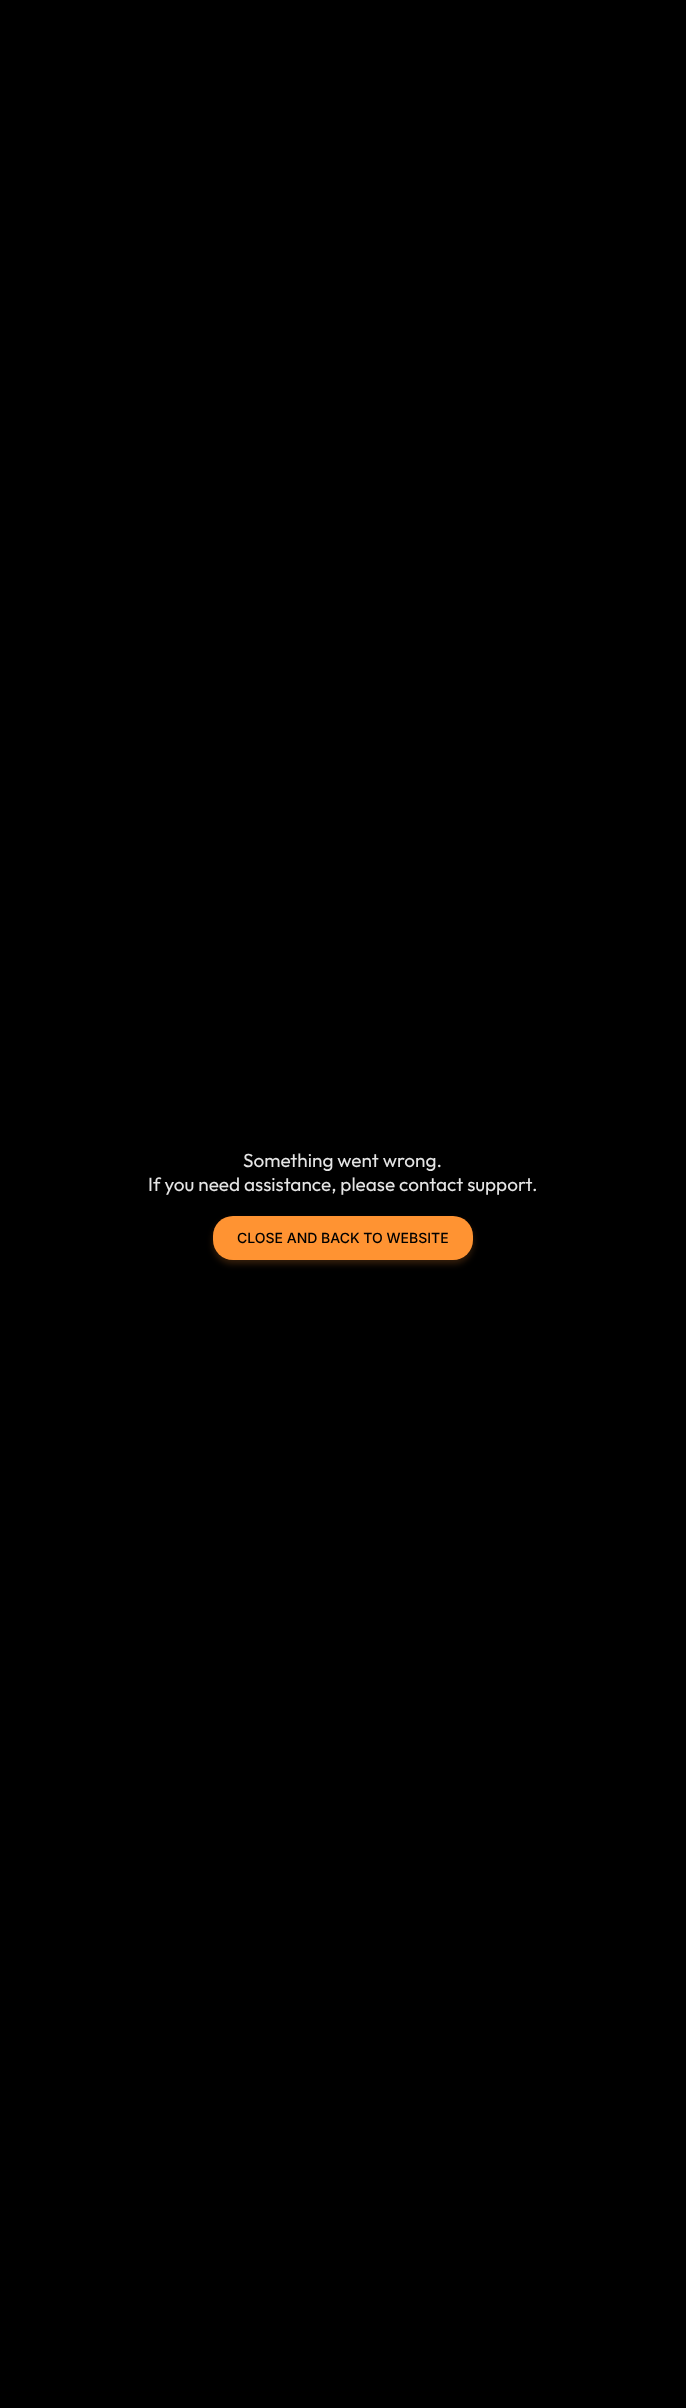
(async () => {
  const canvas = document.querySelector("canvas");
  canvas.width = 686;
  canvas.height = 2408;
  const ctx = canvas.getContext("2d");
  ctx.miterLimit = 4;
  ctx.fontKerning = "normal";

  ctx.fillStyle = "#000000";
  ctx.fillRect(0, 0, 686, 2408);
  ctx.fillStyle = "rgba(255, 147, 50, 0.2)";
  ctx.filter = "blur(3px)";
  ctx.beginPath();
  ctx.roundRect(213, 1220, 260, 44, 20);
  ctx.fill();
  ctx.filter = "none";
  ctx.fillStyle = "#ff9332";
  ctx.beginPath();
  ctx.roundRect(213, 1216, 260, 44, 20);
  ctx.fill();
  ctx.font = "19px Outfit";
  ctx.fillStyle = "#e5e5e5";
  ctx.fillText("Something went wrong.", 243, 1167);
  ctx.fillText("If you need assistance, please contact support.", 148, 1191);
  ctx.font = "500 14px Inter";
  ctx.fillStyle = "#000000";
  ctx.fillText("CLOSE AND BACK TO WEBSITE", 237, 1243);
})();
